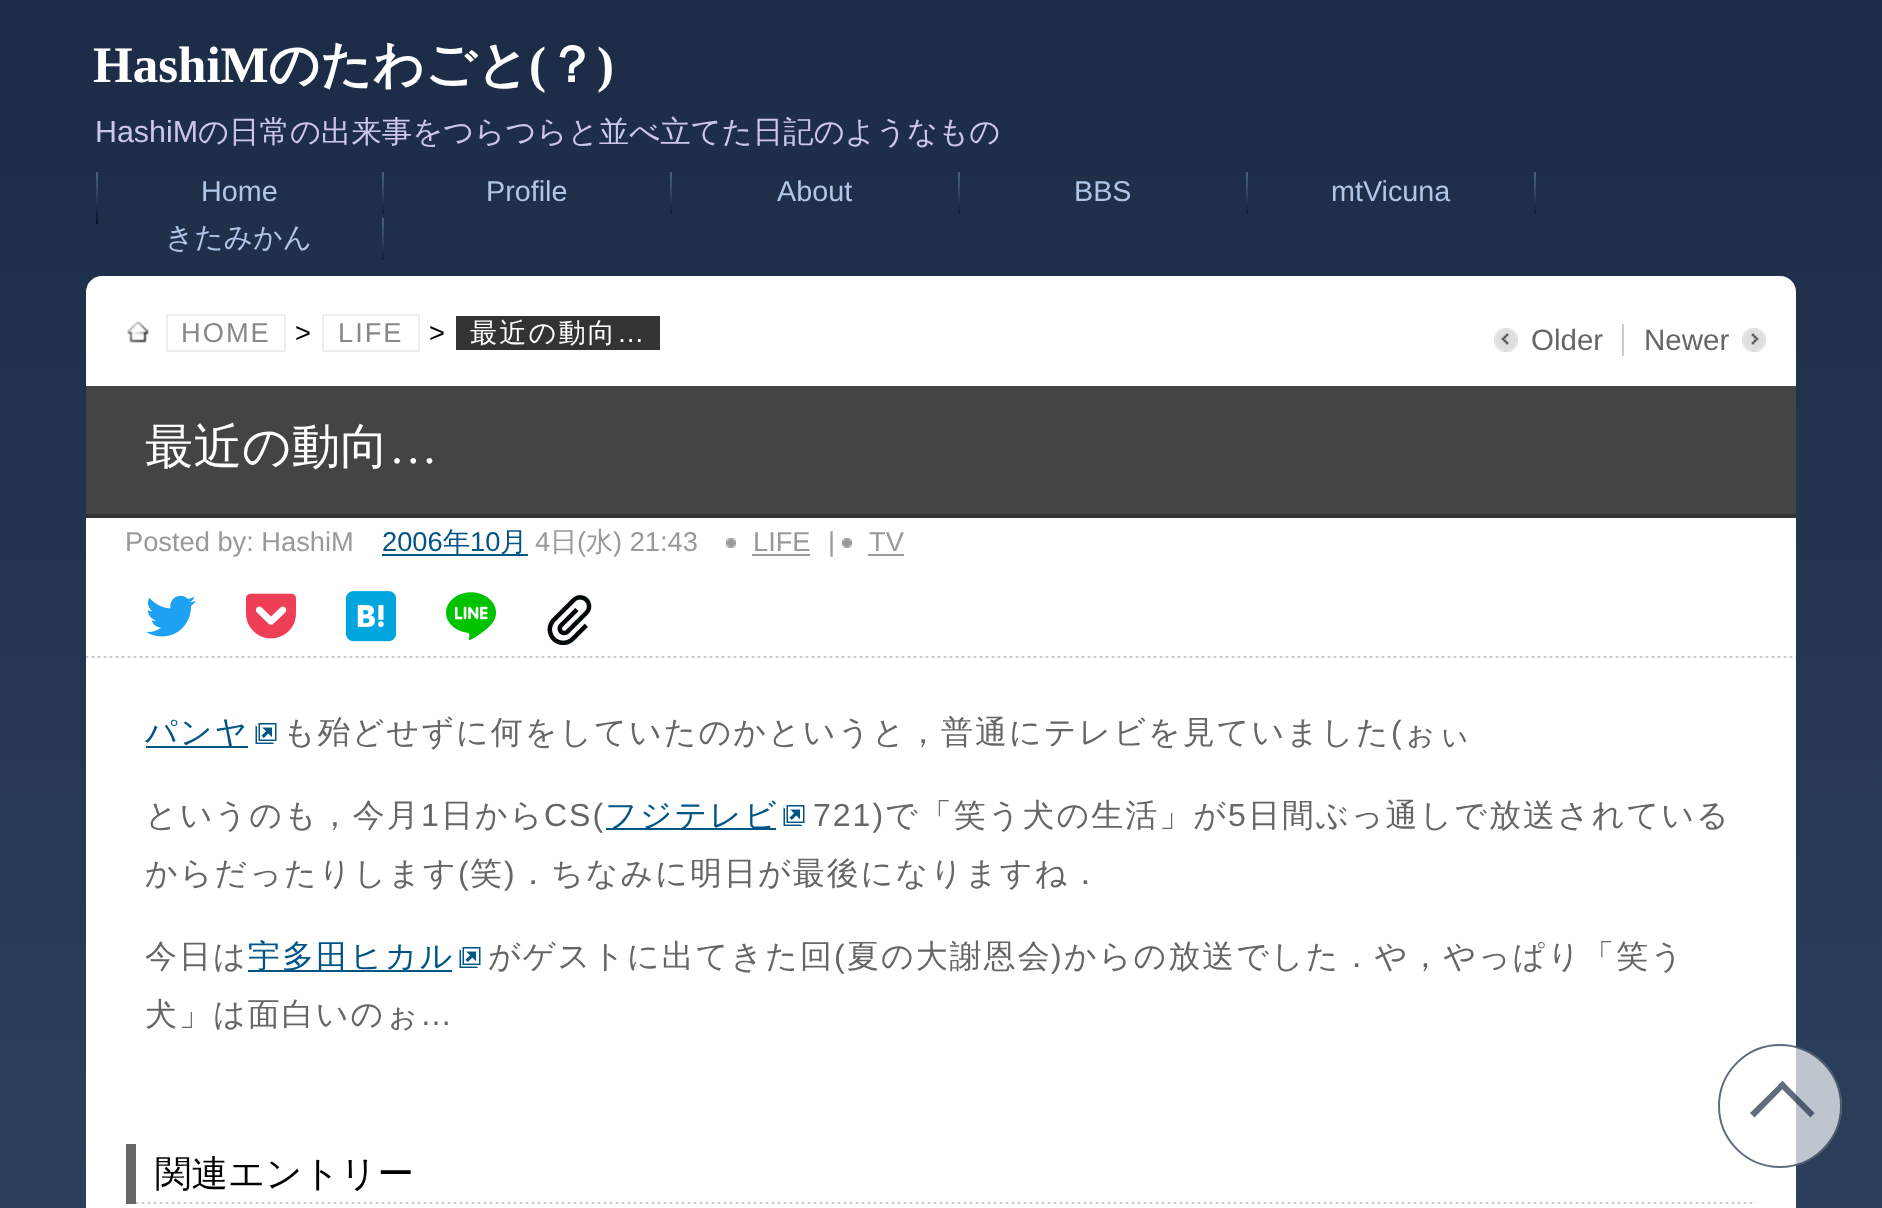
(async () => {
  const canvas = document.querySelector("canvas");
  canvas.width = 1882;
  canvas.height = 1208;
  const ctx = canvas.getContext("2d");
  ctx.miterLimit = 4;
  ctx.fontKerning = "normal";
  async function loadImage(src) {
    const img = new Image();
    img.src = src;
    await img.decode();
    return img;
  }
  let gradient, path;

  ctx.fillStyle = "#ffffff";
  ctx.fillRect(0, 0, 1882, 1208);
  gradient = ctx.createLinearGradient(0, 0, 0, 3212);
  gradient.addColorStop(0, "#1c2c46");
  gradient.addColorStop(1, "#455e7f");
  ctx.fillStyle = gradient;
  ctx.fillRect(0, 0, 1882, 1208);
  ctx.drawImage(await loadImage("img/1.png"), 96, 172, 2, 52);
  ctx.drawImage(await loadImage("img/2.png"), 382, 172, 2, 42);
  ctx.drawImage(await loadImage("img/2.png"), 670, 172, 2, 42);
  ctx.drawImage(await loadImage("img/2.png"), 958, 172, 2, 42);
  ctx.drawImage(await loadImage("img/2.png"), 1246, 172, 2, 42);
  ctx.drawImage(await loadImage("img/2.png"), 1534, 172, 2, 42);
  ctx.drawImage(await loadImage("img/2.png"), 382, 218, 2, 42);
  ctx.fillStyle = "#ffffff";
  path = new Path2D("M102 276H1780C1789 276 1796 283 1796 292V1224H86V292C86 283 93 276 102 276Z");
  ctx.fill(path);
  ctx.drawImage(await loadImage("img/3.png"), 127, 321, 22, 22);
  ctx.strokeStyle = "#eeeeee";
  ctx.lineWidth = 2;
  ctx.strokeRect(167, 315, 118, 36);
  ctx.strokeRect(323, 315, 96, 36);
  ctx.fillStyle = "#333333";
  ctx.fillRect(456, 316, 204, 34);
  ctx.drawImage(await loadImage("img/4.png"), 1494, 328, 24, 24);
  ctx.fillStyle = "#cccccc";
  ctx.fillRect(1622, 324, 2, 32);
  ctx.drawImage(await loadImage("img/5.png"), 1742, 328, 24, 24);
  ctx.drawImage(await loadImage("img/6.png"), 86, 656, 1710, 2);
  for (const [x, y, w, h, color] of [
    [86, 386, 1710, 128, "#444444"],
    [86, 514, 1710, 4, "#333333"],
    [382, 554, 146, 2, "#005585"],
  ]) {
    ctx.fillStyle = color;
    ctx.fillRect(x, y, w, h);
  }
  ctx.drawImage(await loadImage("img/7.png"), 726, 538, 10, 10);
  ctx.fillStyle = "#999999";
  ctx.fillRect(752, 554, 58, 2);
  ctx.drawImage(await loadImage("img/7.png"), 842, 538, 10, 10);
  ctx.fillRect(868, 554, 36, 2);
  ctx.drawImage(await loadImage("img/8.png"), 146, 595, 50, 42);
  ctx.drawImage(await loadImage("img/9.png"), 246, 593, 50, 46);
  ctx.drawImage(await loadImage("img/10.png"), 346, 591, 50, 51);
  ctx.drawImage(await loadImage("img/11.png"), 446, 592, 50, 48);
  ctx.drawImage(await loadImage("img/12.png"), 547, 595, 45, 51);
  ctx.fillStyle = "#005585";
  ctx.fillRect(146, 746, 104, 2);
  ctx.drawImage(await loadImage("img/13.png"), 255, 723, 22, 21);
  ctx.strokeStyle = "#ffffff";
  ctx.strokeRect(249, 721, 36, 26);
  ctx.fillRect(606, 828, 172, 2);
  ctx.drawImage(await loadImage("img/13.png"), 783, 805, 22, 21);
  ctx.fillRect(248, 970, 206, 2);
  ctx.drawImage(await loadImage("img/13.png"), 459, 947, 22, 21);
  ctx.strokeRect(453, 945, 36, 26);
  ctx.drawImage(await loadImage("img/14.png"), 136, 1202, 1620, 2);
  ctx.fillStyle = "#666666";
  ctx.fillRect(126, 1144, 10, 60);
  ctx.fillStyle = "rgba(255, 255, 255, 0.7)";
  ctx.beginPath();
  ctx.arc(1780, 1106, 62, 0, Math.PI * 2);
  ctx.fill();
  ctx.beginPath();
  ctx.arc(1780, 1106, 61, 0, Math.PI * 2);
  ctx.strokeStyle = "rgba(28, 44, 70, 0.7)";
  ctx.stroke();
  ctx.fillStyle = "rgba(28, 44, 70, 0.7)";
  path = new Path2D("M1782.5 1081L1814.5 1113L1810.5 1117.5L1778 1085Z");
  ctx.fill(path);
  ctx.fillStyle = "#606b7e";
  path = new Path2D("M1782.5 1081L1786.5 1085L1754.5 1117.5L1750 1113Z");
  ctx.fill(path);
  ctx.font = "bold 51px Liberation Serif";
  ctx.fillStyle = "#ffffff";
  ctx.fillText("HashiM", 93, 82);
  ctx.font = "bold 51px WenQuanYi Zen Hei";
  ctx.fillText("のたわごと", 268, 82);
  ctx.font = "bold 51px Liberation Serif";
  ctx.fillText("(", 529, 82);
  ctx.font = "bold 51px WenQuanYi Zen Hei";
  ctx.fillText("？", 546, 82);
  ctx.font = "bold 51px Liberation Serif";
  ctx.fillText(")", 597, 82);
  ctx.font = "30.4px Liberation Sans";
  ctx.fillStyle = "#cdc6ec";
  ctx.fillText("HashiM", 95, 142);
  ctx.font = "500 30.4px WenQuanYi Zen Hei";
  ctx.fillText("の日常の出来事をつらつらと並べ立てた日記のようなもの", 198, 142);
  ctx.font = "28.75px Liberation Sans";
  ctx.fillStyle = "#aec7e8";
  for (const [text, x, y] of [
    ["Home", 201, 201],
    ["Profile", 486, 201],
    ["About", 777, 201],
    ["BBS", 1074, 201],
    ["mtVicuna", 1331, 201],
  ]) {
    ctx.fillText(text, x, y);
  }
  ctx.font = "500 28.75px WenQuanYi Zen Hei";
  ctx.fillText("きたみかん", 165, 247);
  ctx.letterSpacing = "2px";
  ctx.font = "27.25px Liberation Sans";
  ctx.fillStyle = "#888888";
  ctx.fillText("HOME", 181, 342);
  ctx.fillStyle = "#000000";
  ctx.fillText(">", 295, 342);
  ctx.fillStyle = "#888888";
  ctx.fillText("LIFE", 338, 342);
  ctx.fillStyle = "#000000";
  ctx.fillText(">", 429, 342);
  ctx.font = "500 27.25px WenQuanYi Zen Hei";
  ctx.fillStyle = "#ffffff";
  ctx.fillText("最近の動向", 470, 342);
  ctx.font = "27.25px Liberation Sans";
  ctx.fillText("…", 617, 342);
  ctx.letterSpacing = "0px";
  ctx.font = "29.5px Liberation Sans";
  ctx.fillStyle = "#666666";
  ctx.fillText("Older", 1531, 350);
  ctx.fillText("Newer", 1644, 350);
  ctx.font = "500 48.5px WenQuanYi Zen Hei";
  ctx.fillStyle = "#ffffff";
  ctx.fillText("最近の動向", 145, 463);
  ctx.font = "48.5px Liberation Serif";
  ctx.fillText("…", 389, 463);
  ctx.font = "27.25px Liberation Sans";
  ctx.fillStyle = "#999999";
  ctx.fillText("Posted by: HashiM", 125, 551);
  ctx.fillStyle = "#005585";
  ctx.fillText("2006", 382, 551);
  ctx.font = "500 27.25px WenQuanYi Zen Hei";
  ctx.fillText("年", 443, 551);
  ctx.font = "27.25px Liberation Sans";
  ctx.fillText("10", 470, 551);
  ctx.font = "500 27.25px WenQuanYi Zen Hei";
  ctx.fillText("月", 500, 551);
  ctx.font = "27.25px Liberation Sans";
  ctx.fillStyle = "#999999";
  ctx.fillText("4", 535, 551);
  ctx.font = "500 27.25px WenQuanYi Zen Hei";
  ctx.fillText("日", 550, 551);
  ctx.font = "27.25px Liberation Sans";
  ctx.fillText("(", 577, 551);
  ctx.font = "500 27.25px WenQuanYi Zen Hei";
  ctx.fillText("水", 586, 551);
  ctx.font = "27.25px Liberation Sans";
  for (const [text, x, y] of [
    [") 21:43", 613, 551],
    ["LIFE", 753, 551],
    ["|", 828, 551],
    ["TV", 869, 551],
  ]) {
    ctx.fillText(text, x, y);
  }
  ctx.letterSpacing = "2px";
  ctx.font = "500 32px WenQuanYi Zen Hei";
  ctx.fillStyle = "#005585";
  ctx.fillText("パンヤ", 145, 743);
  ctx.fillStyle = "#666666";
  ctx.fillText("も殆どせずに何をしていたのかというと，普通にテレビを見ていました", 283, 743);
  ctx.font = "32px Liberation Sans";
  ctx.fillText("(", 1391, 743);
  ctx.font = "500 32px WenQuanYi Zen Hei";
  ctx.fillText("ぉぃ", 1403, 743);
  ctx.fillText("というのも，今月", 145, 826);
  ctx.font = "32px Liberation Sans";
  ctx.fillText("1", 421, 826);
  ctx.font = "500 32px WenQuanYi Zen Hei";
  ctx.fillText("日から", 441, 826);
  ctx.font = "32px Liberation Sans";
  ctx.fillText("CS(", 544, 826);
  ctx.font = "500 32px WenQuanYi Zen Hei";
  ctx.fillStyle = "#005585";
  ctx.fillText("フジテレビ", 605, 826);
  ctx.strokeStyle = "#ffffff";
  ctx.strokeRect(777, 803, 36, 26);
  ctx.font = "32px Liberation Sans";
  ctx.fillStyle = "#666666";
  ctx.fillText("721)", 813, 826);
  ctx.font = "500 32px WenQuanYi Zen Hei";
  ctx.fillText("で「笑う犬の生活」が", 885, 826);
  ctx.font = "32px Liberation Sans";
  ctx.fillText("5", 1228, 826);
  ctx.font = "500 32px WenQuanYi Zen Hei";
  ctx.fillText("日間ぶっ通しで放送されている", 1248, 826);
  ctx.fillText("からだったりします", 145, 884);
  ctx.font = "32px Liberation Sans";
  ctx.fillText("(", 458, 884);
  ctx.font = "500 32px WenQuanYi Zen Hei";
  ctx.fillText("笑", 470, 884);
  ctx.font = "32px Liberation Sans";
  ctx.fillText(")", 504, 884);
  ctx.font = "500 32px WenQuanYi Zen Hei";
  ctx.fillText("．ちなみに明日が最後になりますね．", 517, 884);
  ctx.fillText("今日は", 145, 967);
  ctx.fillStyle = "#005585";
  ctx.fillText("宇多田ヒカル", 248, 967);
  ctx.fillStyle = "#666666";
  ctx.fillText("がゲストに出てきた回", 488, 967);
  ctx.font = "32px Liberation Sans";
  ctx.fillText("(", 834, 967);
  ctx.font = "500 32px WenQuanYi Zen Hei";
  ctx.fillText("夏の大謝恩会", 847, 967);
  ctx.font = "32px Liberation Sans";
  ctx.fillText(")", 1051, 967);
  ctx.font = "500 32px WenQuanYi Zen Hei";
  ctx.fillText("からの放送でした．や，やっぱり「笑う", 1064, 967);
  ctx.fillText("犬」は面白いのぉ", 145, 1025);
  ctx.font = "32px Liberation Sans";
  ctx.fillText("…", 420, 1025);
  ctx.letterSpacing = "0px";
  ctx.font = "500 36.5px WenQuanYi Zen Hei";
  ctx.fillStyle = "#000000";
  ctx.fillText("関連エントリー", 155, 1186);
})();
